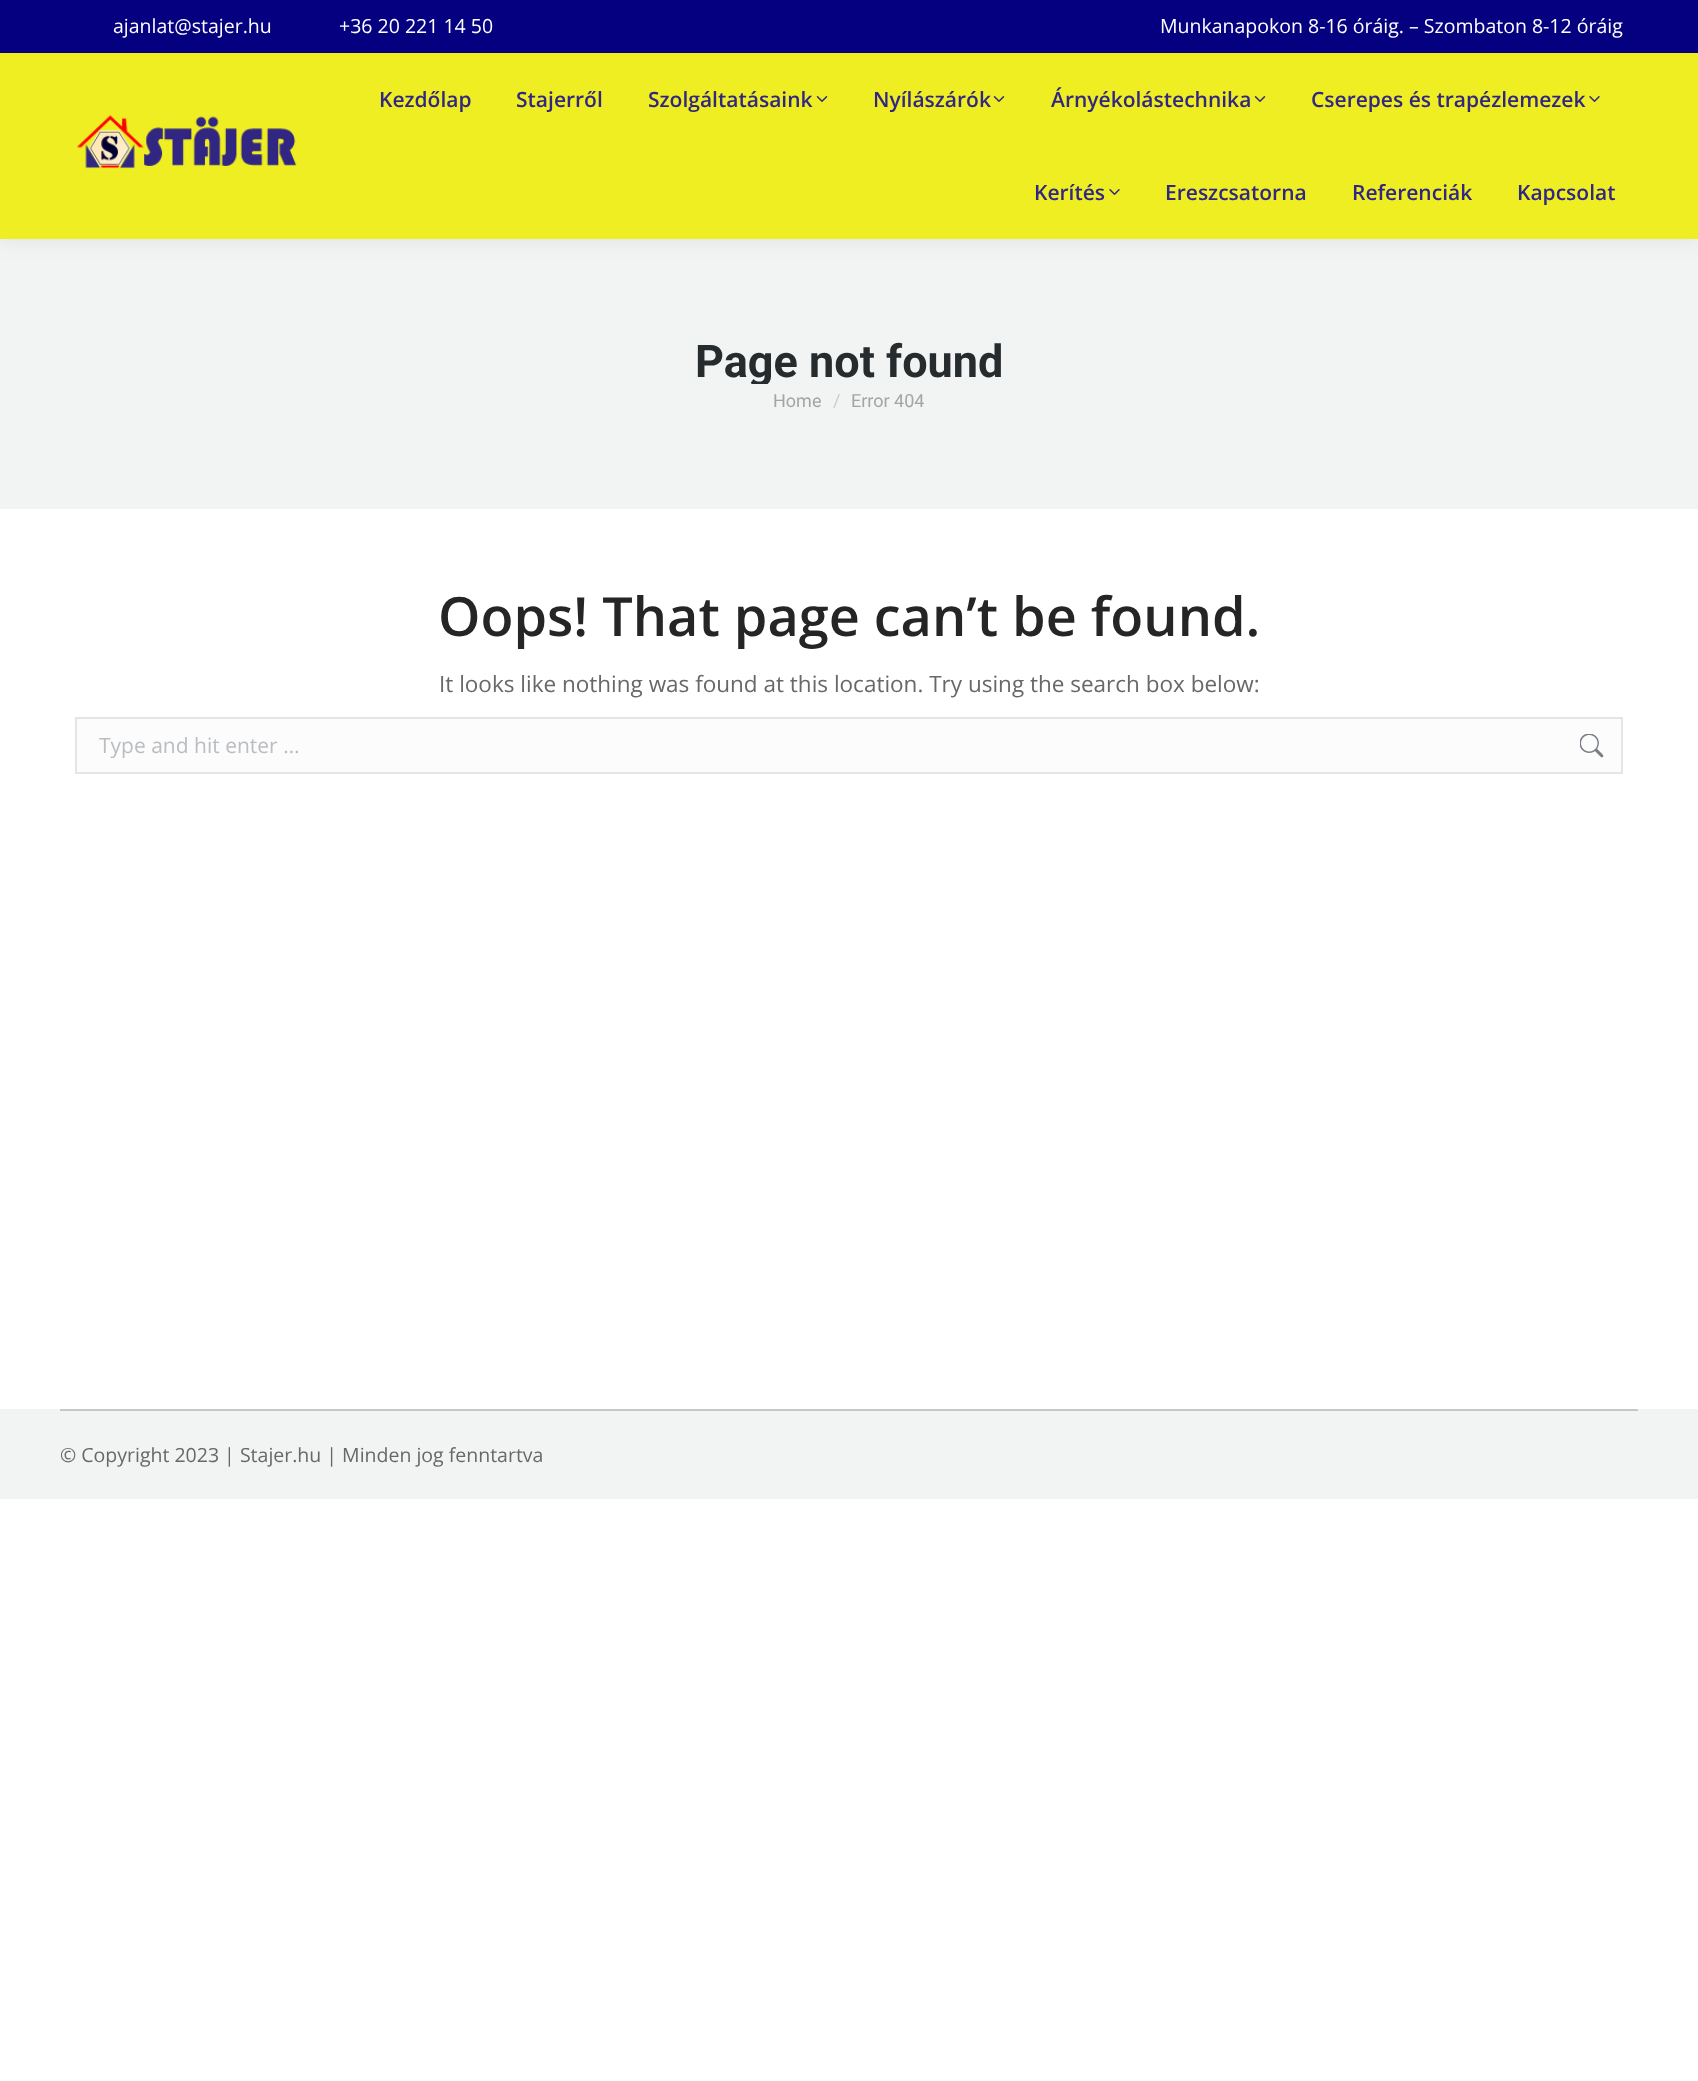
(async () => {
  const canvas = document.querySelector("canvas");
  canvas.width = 1698;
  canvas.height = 2081;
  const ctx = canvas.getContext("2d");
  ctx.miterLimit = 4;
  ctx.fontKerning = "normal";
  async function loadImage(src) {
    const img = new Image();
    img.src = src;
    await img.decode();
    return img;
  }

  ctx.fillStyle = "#ffffff";
  ctx.fillRect(0, 0, 1698, 2081);
  ctx.fillStyle = "#f2f3f3";
  ctx.fillRect(0, 239, 1698, 270);
  ctx.fillStyle = "rgba(0, 0, 0, 0.07)";
  ctx.filter = "blur(11px)";
  ctx.beginPath();
  ctx.rect(-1, -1, 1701, 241);
  ctx.fill();
  ctx.filter = "none";
  ctx.fillStyle = "#eeee22";
  ctx.fillRect(0, 53, 1698, 186);
  ctx.fillStyle = "#04007f";
  ctx.fillRect(0, 0, 1698, 53);
  ctx.drawImage(await loadImage("img/1.png"), 77, 115, 220, 54);
  ctx.drawImage(await loadImage("img/2.png"), 816, 96, 12, 6);
  ctx.drawImage(await loadImage("img/2.png"), 993, 96, 12, 6);
  ctx.drawImage(await loadImage("img/2.png"), 1254, 96, 12, 6);
  ctx.drawImage(await loadImage("img/3.png"), 1589, 96, 11, 6);
  ctx.drawImage(await loadImage("img/3.png"), 1109, 189, 11, 6);
  ctx.fillStyle = "#fcfcfc";
  ctx.beginPath();
  ctx.rect(76, 718, 1546, 55);
  ctx.fill();
  ctx.strokeStyle = "#e4e5e7";
  ctx.lineWidth = 2;
  ctx.stroke();
  ctx.drawImage(await loadImage("img/4.png"), 1580, 734, 24, 24);
  ctx.fillStyle = "#f2f3f3";
  ctx.fillRect(0, 1409, 1698, 90);
  ctx.fillStyle = "#c6c7c8";
  ctx.fillRect(60, 1409, 1578, 2);
  ctx.font = "19.5px Open Sans";
  ctx.fillStyle = "#ffffff";
  for (const [text, x, y] of [
    ["ajanlat@stajer.hu", 113, 33],
    ["+36 20 221 14 50", 339, 33],
    ["Munkanapokon 8-16 óráig. – Szombaton 8-12 óráig", 1160, 33],
  ]) {
    ctx.fillText(text, x, y);
  }
  ctx.font = "600 21px Open Sans";
  ctx.fillStyle = "#312783";
  for (const [text, x, y] of [
    ["Kezdőlap", 379, 107],
    ["Stajerről", 516, 107],
    ["Szolgáltatásaink", 648, 107],
    ["Nyílászárók", 873, 107],
    ["Árnyékolástechnika", 1051, 107],
    ["Cserepes és trapézlemezek", 1311, 107],
    ["Kerítés", 1034, 200],
    ["Ereszcsatorna", 1165, 200],
    ["Referenciák", 1352, 200],
    ["Kapcsolat", 1517, 200],
  ]) {
    ctx.fillText(text, x, y);
  }
  ctx.save();
  ctx.beginPath();
  ctx.rect(695, 339, 309, 45);
  ctx.clip();
  ctx.font = "bold 45px Roboto";
  ctx.fillStyle = "#262b2e";
  ctx.fillText("Page not found", 695, 377);
  ctx.restore();
  ctx.font = "18px Roboto";
  ctx.fillStyle = "#a2a5a6";
  ctx.fillText("Home", 773, 407);
  ctx.fillStyle = "#cacccd";
  ctx.fillText("/", 833, 407);
  ctx.fillStyle = "#a2a5a6";
  ctx.fillText("Error 404", 851, 407);
  ctx.font = "600 54px Open Sans";
  ctx.fillStyle = "#252525";
  ctx.fillText("Oops! That page can’t be found.", 438, 636);
  ctx.font = "22.5px Open Sans";
  ctx.fillStyle = "#686868";
  ctx.fillText("It looks like nothing was found at this location. Try using the search box below:", 439, 692);
  ctx.font = "21px Open Sans";
  ctx.fillStyle = "#babdc1";
  ctx.fillText("Type and hit enter …", 99, 753);
  ctx.font = "19.5px Open Sans";
  ctx.fillStyle = "#686868";
  ctx.fillText("© Copyright 2023 | Stajer.hu | Minden jog fenntartva", 60, 1462);
})();
